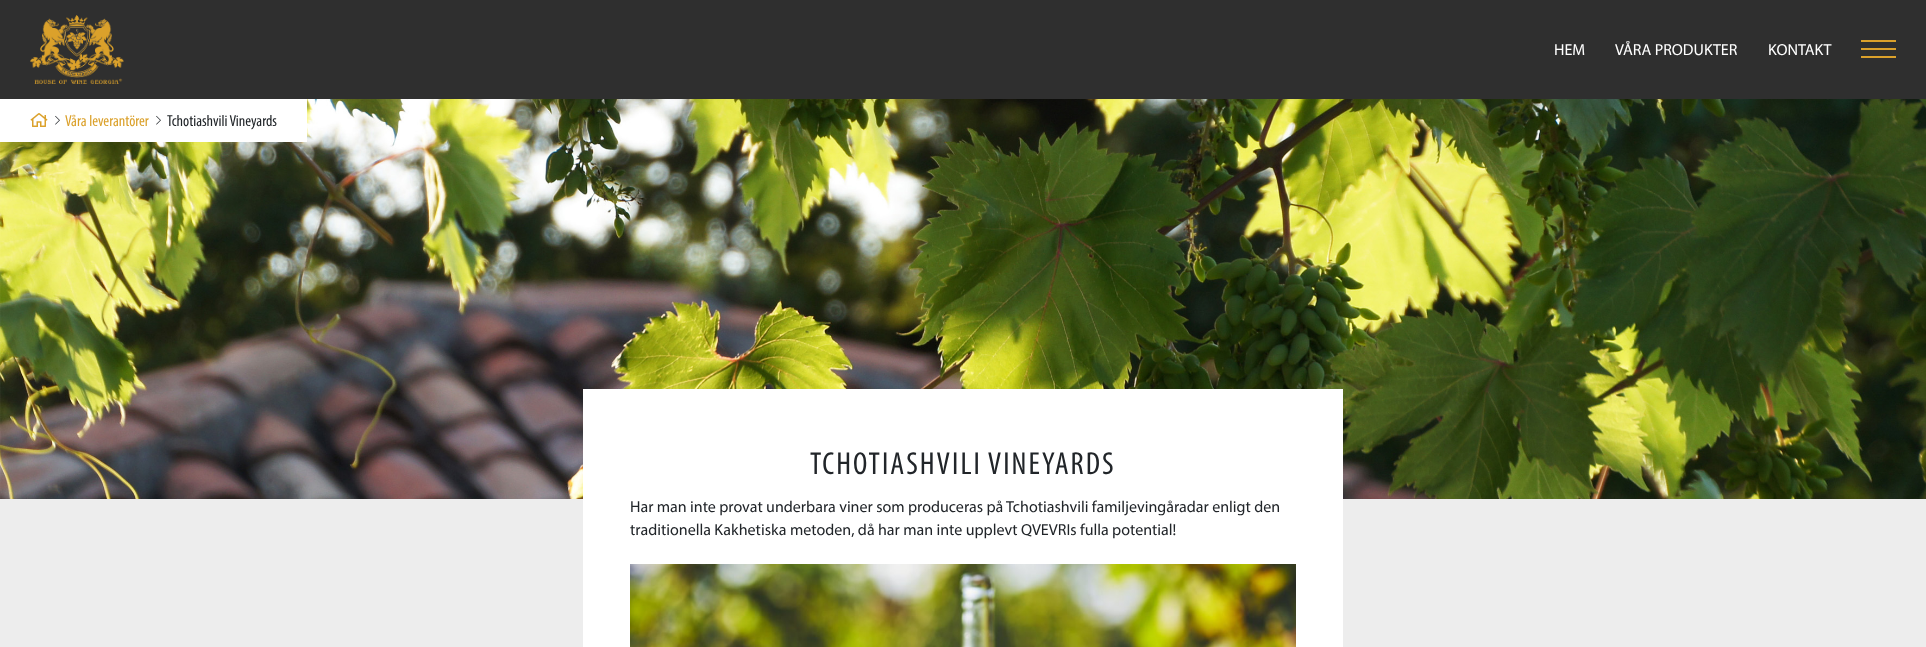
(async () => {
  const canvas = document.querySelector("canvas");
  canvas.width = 1926;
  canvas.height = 647;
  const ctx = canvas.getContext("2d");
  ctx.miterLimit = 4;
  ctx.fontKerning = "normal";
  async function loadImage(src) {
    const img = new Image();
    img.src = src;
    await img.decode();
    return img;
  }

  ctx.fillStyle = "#ededed";
  ctx.fillRect(0, 0, 1926, 647);
  ctx.fillStyle = "#2f2f2f";
  ctx.fillRect(0, 0, 1926, 99);
  ctx.drawImage(await loadImage("img/1.png"), 30, 15, 94, 69);
  for (const [x, y, w, h, color] of [
    [1861, 48, 35, 2, "#dba12b"],
    [1861, 40, 35, 2, "#dba12b"],
    [1861, 56, 35, 2, "#dba12b"],
  ]) {
    ctx.fillStyle = color;
    ctx.fillRect(x, y, w, h);
  }
  ctx.drawImage(await loadImage("img/4.png"), 0, 99, 1926, 400);
  ctx.fillStyle = "#ffffff";
  ctx.fillRect(0, 99, 307, 43);
  ctx.drawImage(await loadImage("img/2.png"), 30, 113, 18, 14);
  ctx.drawImage(await loadImage("img/3.png"), 55, 115, 5, 10);
  ctx.drawImage(await loadImage("img/3.png"), 156, 115, 5, 10);
  ctx.fillRect(583, 389, 760, 258);
  ctx.drawImage(await loadImage("img/5.png"), 630, 564, 666, 83);
  ctx.font = "16px Myriad";
  for (const [text, x, y] of [
    ["HEM", 1554, 55],
    ["VÅRA PRODUKTER", 1615, 55],
    ["KONTAKT", 1768, 55],
  ]) {
    ctx.fillText(text, x, y);
  }
  ctx.font = "16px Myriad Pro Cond";
  ctx.fillStyle = "#dba12b";
  ctx.fillText("Våra leverantörer", 65, 126);
  ctx.fillStyle = "#212529";
  ctx.fillText("Tchotiashvili Vineyards", 167, 126);
  ctx.letterSpacing = "2px";
  ctx.font = "32px Myriad Pro Cond";
  ctx.fillText("TCHOTIASHVILI VINEYARDS", 810, 474);
  ctx.letterSpacing = "0px";
  ctx.font = "16px Myriad";
  ctx.fillText("Har man inte provat underbara viner som produceras på Tchotiashvili familjevingåradar enligt den", 630, 512);
  ctx.fillText("traditionella Kakhetiska metoden, då har man inte upplevt QVEVRIs fulla potential!", 630, 535);
})();
